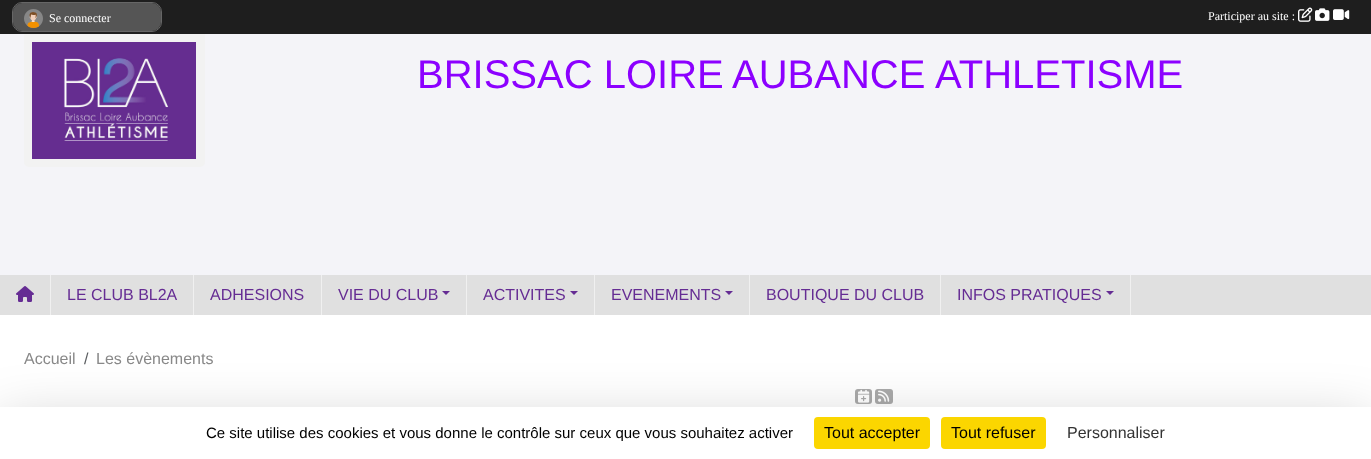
(async () => {
  const canvas = document.querySelector("canvas");
  canvas.width = 1371;
  canvas.height = 459;
  const ctx = canvas.getContext("2d");
  ctx.miterLimit = 4;
  ctx.fontKerning = "normal";
  async function loadImage(src) {
    const img = new Image();
    img.src = src;
    await img.decode();
    return img;
  }
  let path;

  ctx.fillStyle = "#e0e0e0";
  ctx.fillRect(0, 0, 1371, 459);
  ctx.fillStyle = "#1e1e1e";
  ctx.fillRect(0, 0, 1371, 34);
  ctx.beginPath();
  ctx.roundRect(12.5, 2.5, 149, 29, 9.5);
  ctx.strokeStyle = "#666666";
  ctx.stroke();
  ctx.fillStyle = "#555555";
  ctx.beginPath();
  ctx.roundRect(13, 3, 148, 28, 9);
  ctx.fill();
  ctx.drawImage(await loadImage("img/1.png"), 24, 9, 19, 19);
  ctx.drawImage(await loadImage("img/2.png"), 1298, 7, 15, 15);
  ctx.drawImage(await loadImage("img/3.png"), 1315, 8, 15, 13);
  ctx.drawImage(await loadImage("img/4.png"), 1333, 9, 17, 11);
  ctx.fillStyle = "#f4f4f8";
  ctx.fillRect(0, 34, 1371, 241);
  ctx.fillStyle = "#f2f2f2";
  ctx.beginPath();
  ctx.roundRect(24, 34, 181, 133, [0, 0, 5, 5]);
  ctx.fill();
  ctx.drawImage(await loadImage("img/5.png"), 32, 42, 164, 117);
  ctx.fillStyle = "#f0f0f0";
  ctx.fillRect(50, 275, 1, 40);
  ctx.drawImage(await loadImage("img/6.png"), 16, 286, 18, 16);
  for (const [x, y, w, h, color] of [
    [193, 275, 1, 40, "#f0f0f0"],
    [321, 275, 1, 40, "#f0f0f0"],
    [466, 275, 1, 40, "#f0f0f0"],
  ]) {
    ctx.fillStyle = color;
    ctx.fillRect(x, y, w, h);
  }
  ctx.fillStyle = "#652c93";
  path = new Path2D("M442 291H450L446 295Z");
  ctx.fill(path);
  ctx.fillStyle = "#f0f0f0";
  ctx.fillRect(594, 275, 1, 40);
  ctx.fillStyle = "#652c93";
  path = new Path2D("M570 291H578L574 295Z");
  ctx.fill(path);
  ctx.fillStyle = "#f0f0f0";
  ctx.fillRect(749, 275, 1, 40);
  ctx.fillStyle = "#652c93";
  path = new Path2D("M725 291H733L729 295Z");
  ctx.fill(path);
  ctx.fillStyle = "#f0f0f0";
  ctx.fillRect(940, 275, 1, 40);
  ctx.fillRect(1130, 275, 1, 40);
  ctx.fillStyle = "#652c93";
  path = new Path2D("M1106 291H1114L1110 295Z");
  ctx.fill(path);
  ctx.fillStyle = "#ffffff";
  ctx.fillRect(0, 315, 1371, 92);
  ctx.fillStyle = "#aaaaaa";
  ctx.beginPath();
  ctx.roundRect(855, 389, 17, 15, 3);
  ctx.fill();
  ctx.drawImage(await loadImage("img/7.png"), 858, 389, 12, 14);
  ctx.beginPath();
  ctx.roundRect(875, 389, 18, 15, 3);
  ctx.fill();
  ctx.drawImage(await loadImage("img/8.png"), 878, 390, 12, 12);
  ctx.fillStyle = "rgba(0, 0, 0, 0.25)";
  ctx.filter = "blur(30px)";
  ctx.beginPath();
  ctx.rect(0, 427, 1371, 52);
  ctx.fill();
  ctx.filter = "none";
  ctx.fillStyle = "#ffffff";
  ctx.fillRect(0, 407, 1371, 52);
  ctx.fillStyle = "#fbd600";
  ctx.beginPath();
  ctx.roundRect(814, 417, 116, 32, 4);
  ctx.fill();
  ctx.beginPath();
  ctx.roundRect(941, 417, 105, 32, 4);
  ctx.fill();
  ctx.font = "12px Liberation Serif";
  ctx.fillStyle = "#ffffff";
  ctx.fillText("Se connecter", 49, 22);
  ctx.fillText("Participer au site :", 1208, 20);
  ctx.font = "40px Liberation Sans";
  ctx.fillStyle = "#8c00ff";
  for (const [text, x, y] of [
    ["BRISSAC LOIRE", 417, 88],
    ["AUBANCE", 732, 88],
    ["ATHLETISME", 935, 88],
  ]) {
    ctx.fillText(text, x, y);
  }
  ctx.font = "16px Liberation Sans";
  ctx.fillStyle = "#652c93";
  for (const [text, x, y] of [
    ["LE CLUB BL2A", 67, 300],
    ["ADHESIONS", 210, 300],
    ["VIE DU CLUB", 338, 300],
    ["ACTIVITES", 483, 300],
    ["EVENEMENTS", 611, 300],
    ["BOUTIQUE DU CLUB", 766, 300],
    ["INFOS PRATIQUES", 957, 300],
  ]) {
    ctx.fillText(text, x, y);
  }
  ctx.fillStyle = "#888888";
  ctx.fillText("Accueil", 24, 364);
  ctx.fillStyle = "#595c5f";
  ctx.fillText("/", 84, 364);
  ctx.fillStyle = "#888888";
  ctx.fillText("Les évènements", 96, 364);
  ctx.font = "15px Liberation Sans";
  ctx.fillStyle = "#000000";
  ctx.fillText("Ce site utilise des cookies et vous donne le contrôle sur ceux que vous souhaitez activer", 206, 438);
  ctx.font = "16px Liberation Sans";
  ctx.fillText("Tout accepter", 824, 438);
  ctx.fillText("Tout refuser", 951, 438);
  ctx.fillStyle = "#333333";
  ctx.fillText("Personnaliser", 1067, 438);
})();
